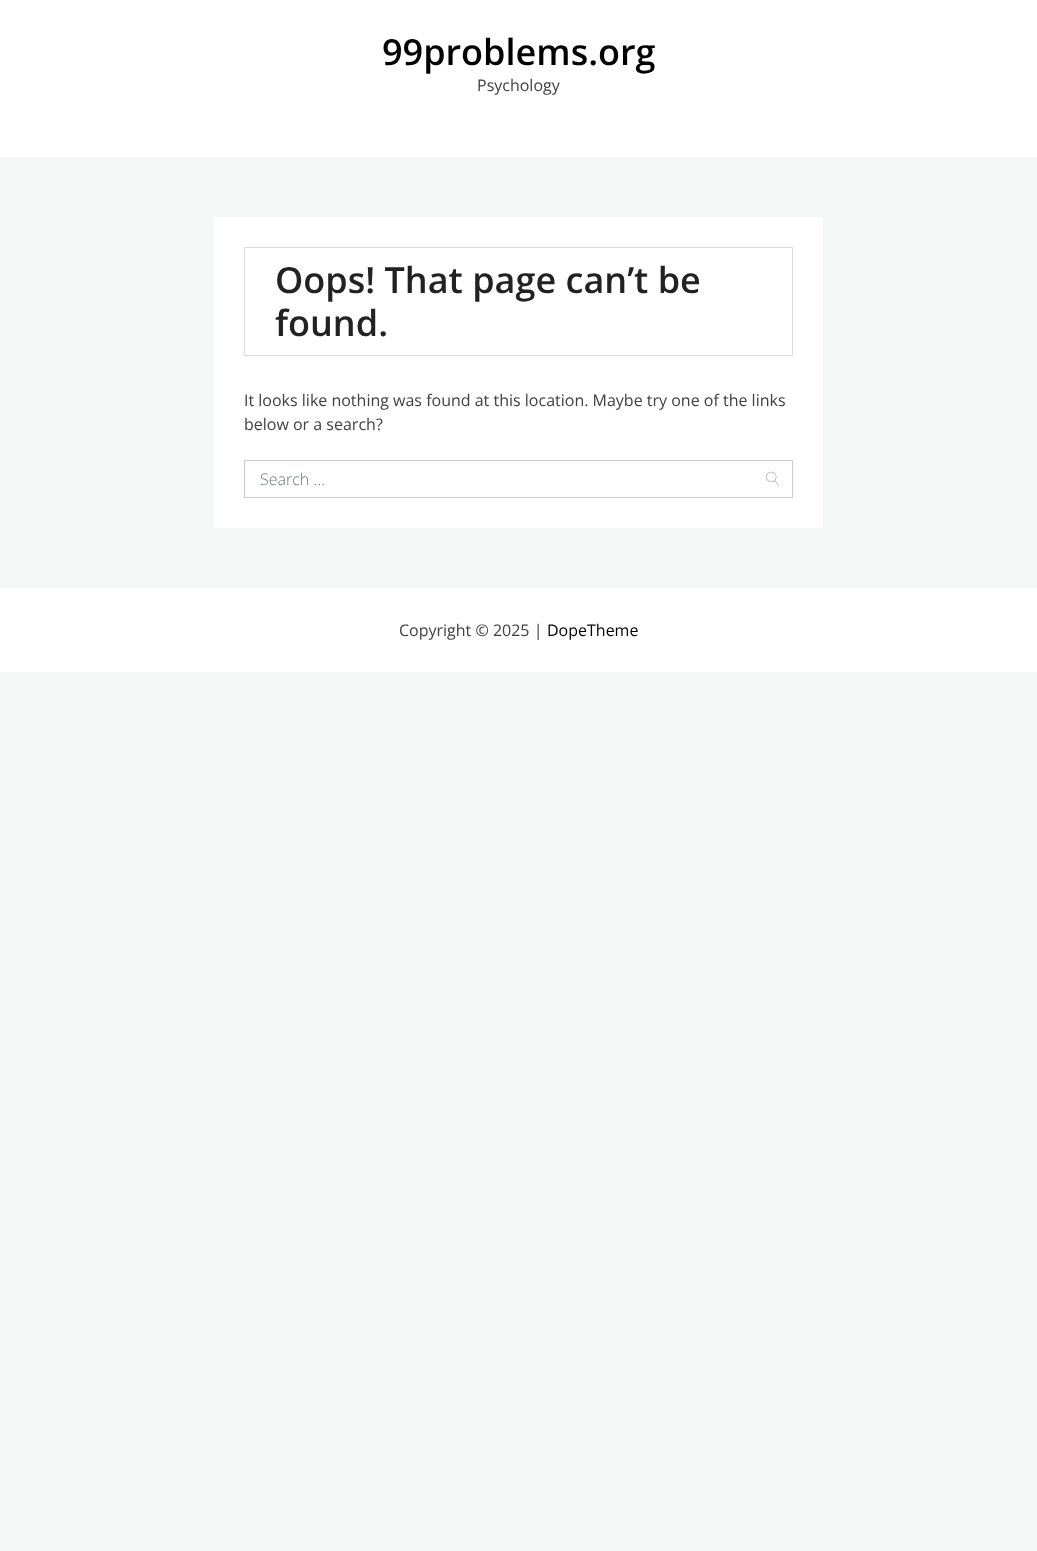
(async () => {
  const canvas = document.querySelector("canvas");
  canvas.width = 1037;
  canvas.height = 1551;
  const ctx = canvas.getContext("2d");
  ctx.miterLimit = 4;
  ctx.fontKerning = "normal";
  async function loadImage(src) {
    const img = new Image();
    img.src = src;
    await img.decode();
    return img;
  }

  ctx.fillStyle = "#f4f7f6";
  ctx.fillRect(0, 0, 1037, 1551);
  ctx.fillStyle = "#ffffff";
  ctx.fillRect(0, 0, 1037, 157);
  ctx.fillRect(214, 217, 609, 311);
  ctx.strokeStyle = "#dddddd";
  ctx.strokeRect(244.5, 247.5, 548, 108);
  ctx.strokeStyle = "#cccccc";
  ctx.strokeRect(244.5, 460.5, 548, 37);
  ctx.drawImage(await loadImage("img/1.png"), 766, 471, 14, 15);
  ctx.fillRect(0, 588, 1037, 84);
  ctx.font = "600 36px Open Sans";
  ctx.fillStyle = "#000000";
  ctx.fillText("99problems.org", 382, 65);
  ctx.font = "16px Open Sans";
  ctx.fillStyle = "#404040";
  ctx.fillText("Psychology", 477, 91);
  ctx.font = "600 36px Open Sans";
  ctx.fillStyle = "#222222";
  ctx.fillText("Oops! That page can’t be", 275, 293);
  ctx.fillText("found.", 275, 336);
  ctx.font = "16px Open Sans";
  ctx.fillStyle = "#404040";
  ctx.fillText("It looks like nothing was found at this location. Maybe try one of the links", 244, 406);
  ctx.fillText("below or a search?", 244, 430);
  ctx.font = "300 16px Open Sans";
  ctx.fillStyle = "#6c757d";
  ctx.fillText("Search …", 260, 485);
  ctx.font = "16px Open Sans";
  ctx.fillStyle = "#404040";
  ctx.fillText("Copyright © 2025 |", 399, 636);
  ctx.fillStyle = "#000000";
  ctx.fillText("DopeTheme", 547, 636);
})();
